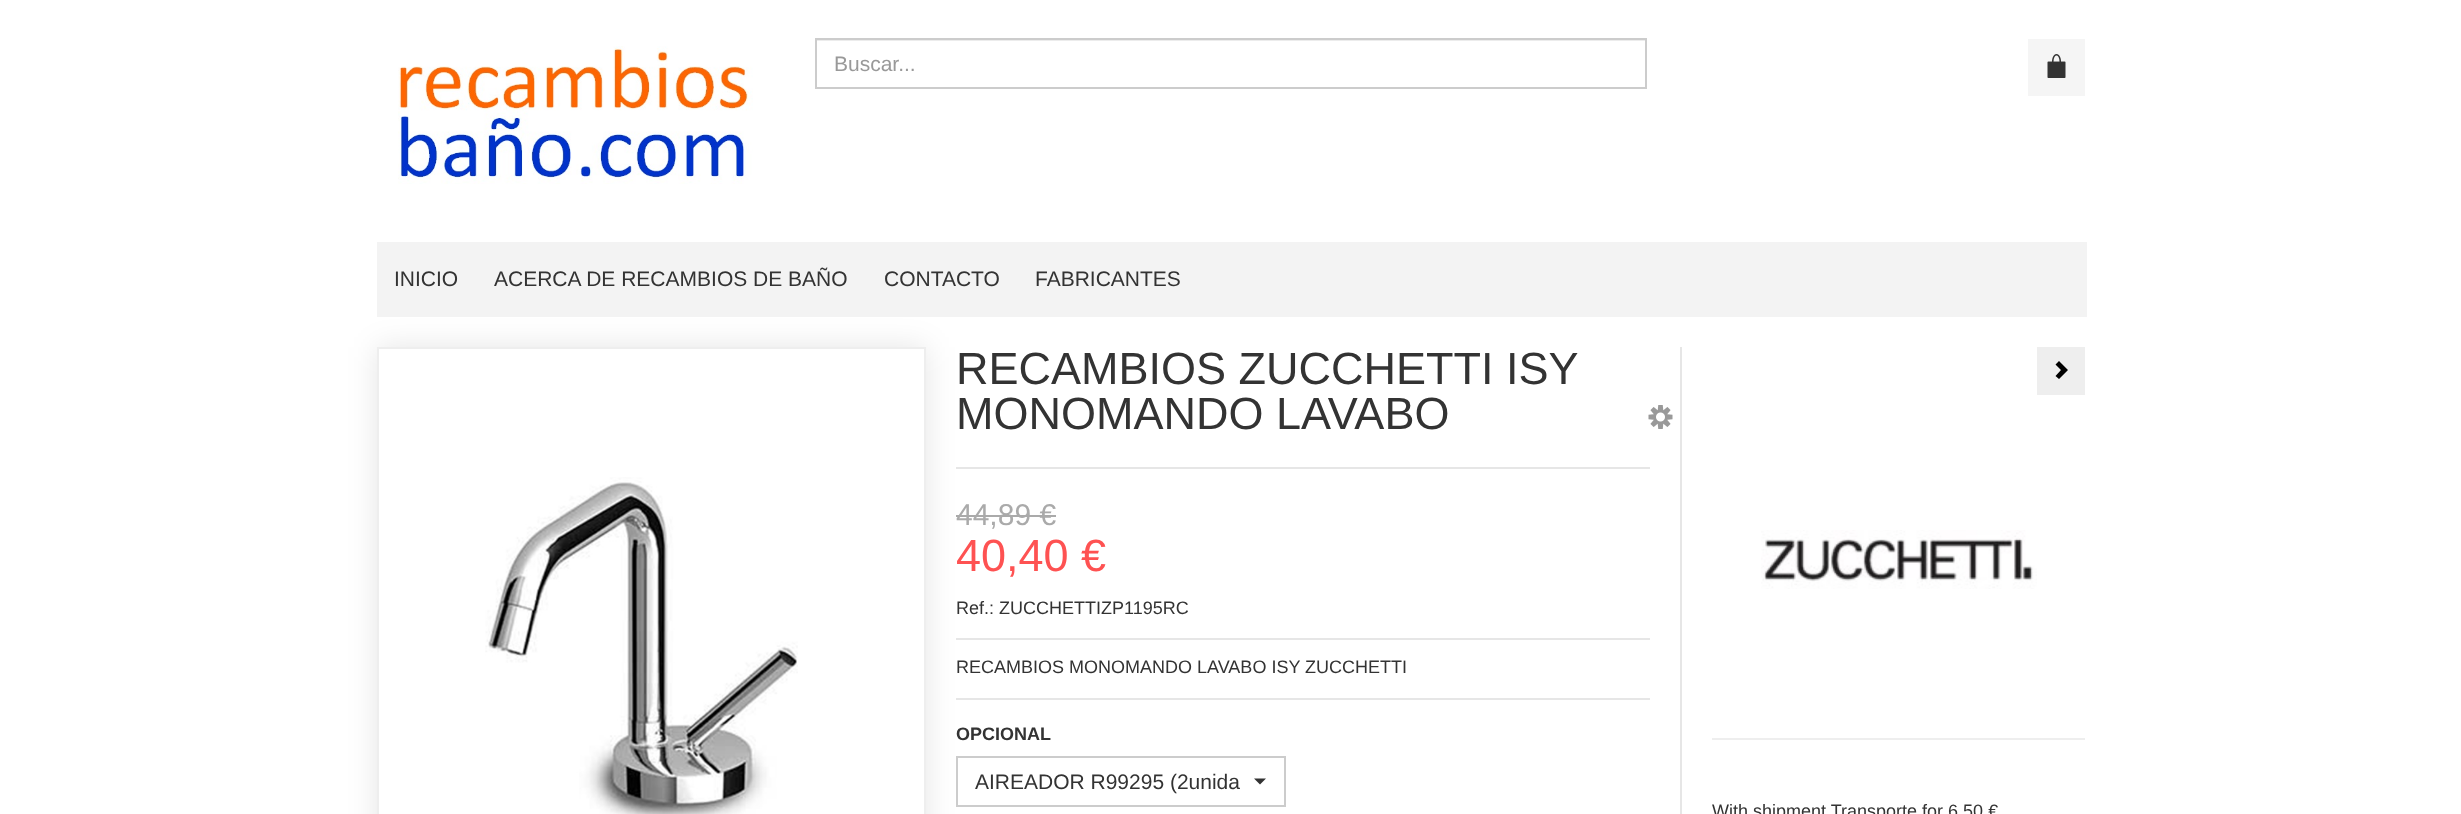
(async () => {
  const canvas = document.querySelector("canvas");
  canvas.width = 2461;
  canvas.height = 814;
  const ctx = canvas.getContext("2d");
  ctx.miterLimit = 4;
  ctx.fontKerning = "normal";
  async function loadImage(src) {
    const img = new Image();
    img.src = src;
    await img.decode();
    return img;
  }
  let path;

  ctx.fillStyle = "#ffffff";
  ctx.fillRect(0, 0, 2461, 814);
  ctx.drawImage(await loadImage("img/1.png"), 398, 46, 355, 138);
  ctx.fillStyle = "#ececec";
  ctx.fillRect(816, 40, 830, 1);
  ctx.strokeStyle = "#cccccc";
  ctx.lineWidth = 2;
  ctx.strokeRect(816, 39, 830, 49);
  ctx.fillStyle = "#f5f5f5";
  ctx.fillRect(2028, 39, 57, 57);
  ctx.drawImage(await loadImage("img/2.png"), 2047, 54, 19, 24);
  ctx.fillStyle = "#f3f3f3";
  ctx.fillRect(377, 242, 1710, 75);
  ctx.fillStyle = "rgba(0, 0, 0, 0.1)";
  ctx.filter = "blur(15px)";
  ctx.beginPath();
  ctx.rect(377, 347, 549, 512);
  ctx.fill();
  ctx.filter = "none";
  ctx.fillStyle = "#ffffff";
  ctx.beginPath();
  ctx.rect(378, 348, 547, 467);
  ctx.fill();
  ctx.strokeStyle = "#eeeeee";
  ctx.stroke();
  ctx.drawImage(await loadImage("img/3.png"), 485, 477, 313, 337);
  ctx.drawImage(await loadImage("img/4.png"), 1648, 405, 25, 24);
  for (const [x, y, w, h, color] of [
    [956, 467, 694, 2, "#e6e6e6"],
    [956, 638, 694, 2, "#e6e6e6"],
    [956, 515, 100, 2, "#aaaaaa"],
    [956, 698, 694, 2, "#e6e6e6"],
  ]) {
    ctx.fillStyle = color;
    ctx.fillRect(x, y, w, h);
  }
  ctx.strokeStyle = "#cccccc";
  ctx.strokeRect(957, 757, 328, 49);
  ctx.fillStyle = "#333333";
  path = new Path2D("M1254 778.5H1266L1260 784.5Z");
  ctx.fill(path);
  ctx.fillStyle = "#e6e6e6";
  ctx.fillRect(1680, 347, 2, 467);
  ctx.fillStyle = "#eeeeee";
  ctx.fillRect(2037, 347, 48, 48);
  ctx.fillStyle = "#000000";
  path = new Path2D("M2059 361L2055.5 364.5L2061 370L2055.5 376L2059 379L2068 370Z");
  ctx.fill(path);
  ctx.fillStyle = "#eeeeee";
  ctx.fillRect(1712, 738, 373, 2);
  ctx.drawImage(await loadImage("img/5.png"), 1761, 530, 276, 59);
  ctx.font = "21px Liberation Sans";
  ctx.fillStyle = "#999999";
  ctx.fillText("Buscar...", 834, 71);
  ctx.fillStyle = "#333333";
  for (const [text, x, y] of [
    ["INICIO", 394, 286],
    ["ACERCA DE RECAMBIOS DE BAÑO", 494, 286],
    ["CONTACTO", 884, 286],
    ["FABRICANTES", 1035, 286],
  ]) {
    ctx.fillText(text, x, y);
  }
  ctx.font = "45px Liberation Sans";
  ctx.fillText("RECAMBIOS ZUCCHETTI ISY", 956, 384);
  ctx.fillText("MONOMANDO LAVABO", 956, 429);
  ctx.font = "30px Liberation Sans";
  ctx.fillStyle = "#aaaaaa";
  ctx.fillText("44,89 €", 956, 525);
  ctx.font = "45px Liberation Sans";
  ctx.fillStyle = "#fe5252";
  ctx.fillText("40,40 €", 956, 571);
  ctx.font = "18px Liberation Sans";
  ctx.fillStyle = "#333333";
  ctx.fillText("Ref.: ZUCCHETTIZP1195RC", 956, 614);
  ctx.fillText("RECAMBIOS MONOMANDO LAVABO ISY ZUCCHETTI", 956, 673);
  ctx.font = "bold 18px Liberation Sans";
  ctx.fillText("OPCIONAL", 956, 740);
  ctx.font = "21px Liberation Sans";
  ctx.fillText("AIREADOR R99295 (2unida", 975, 789);
  ctx.font = "18px Liberation Sans";
  ctx.fillText("With shipment Transporte for 6,50 €", 1712, 817);
})();
